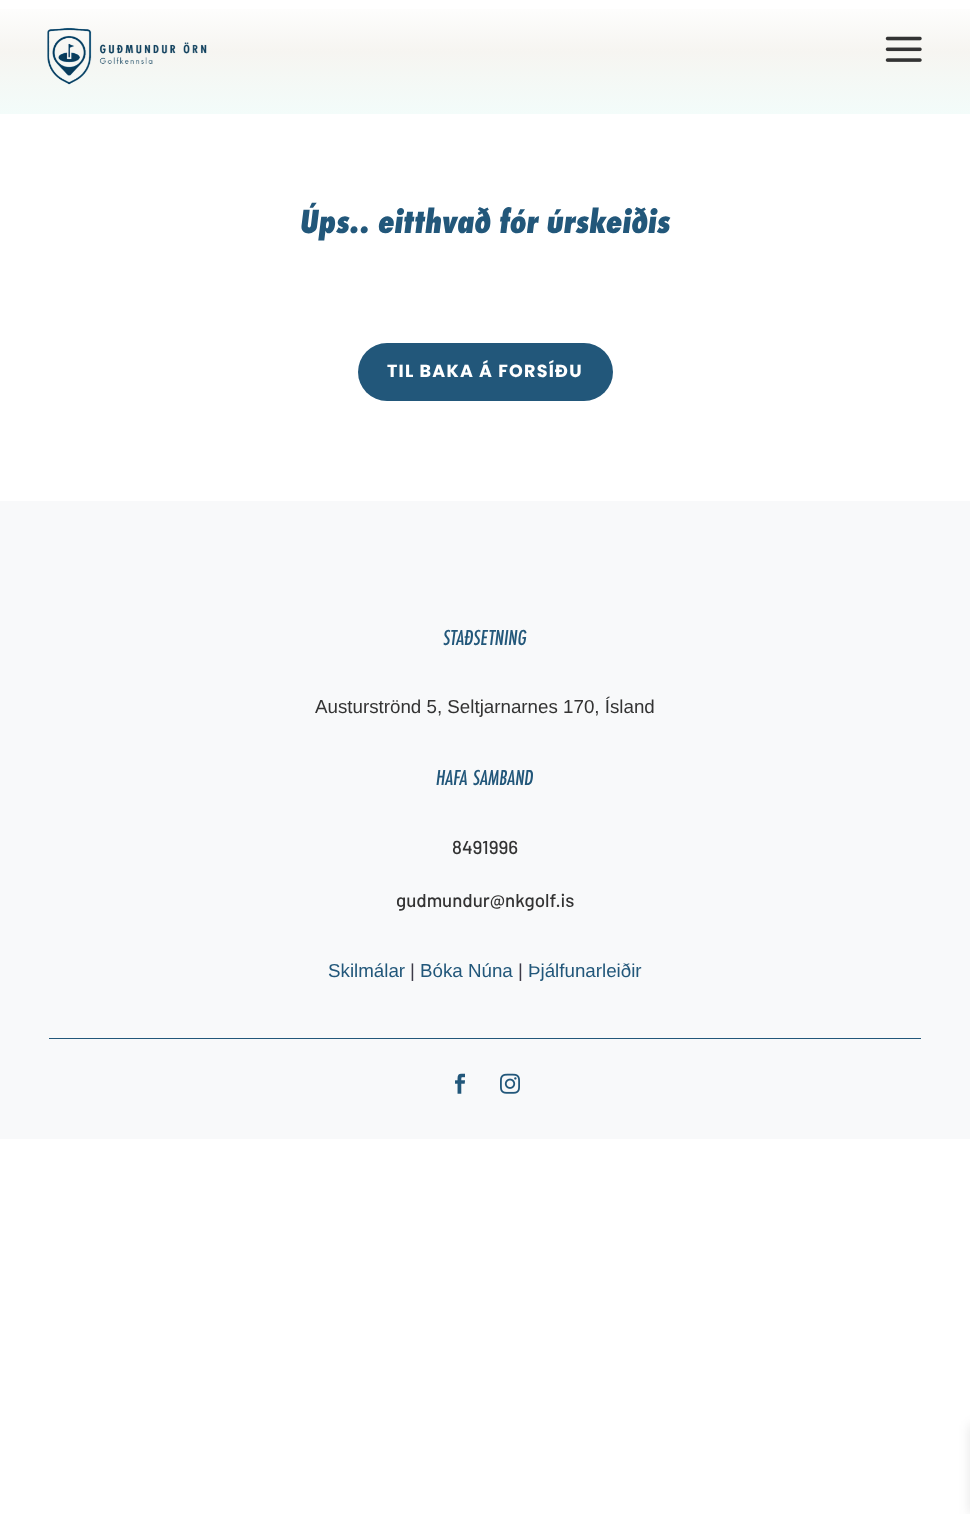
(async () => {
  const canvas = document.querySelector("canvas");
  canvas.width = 970;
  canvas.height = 1514;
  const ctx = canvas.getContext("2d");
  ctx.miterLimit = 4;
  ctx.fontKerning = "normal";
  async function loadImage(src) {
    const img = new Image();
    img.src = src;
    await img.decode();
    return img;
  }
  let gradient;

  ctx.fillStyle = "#ffffff";
  ctx.fillRect(0, 0, 970, 1514);
  gradient = ctx.createLinearGradient(485, 0, 485, 114);
  gradient.addColorStop(0, "#ffffff");
  gradient.addColorStop(0.45, "#f6f5f1");
  gradient.addColorStop(1, "#f3fcfa");
  ctx.fillStyle = gradient;
  ctx.fillRect(0, 9, 970, 105);
  ctx.drawImage(await loadImage("img/1.png"), 47, 27, 160, 58);
  ctx.drawImage(await loadImage("img/2.png"), 885, 36, 37, 26);
  ctx.fillStyle = "#22577a";
  ctx.beginPath();
  ctx.roundRect(358, 343, 255, 58, 29);
  ctx.fill();
  ctx.fillStyle = "#f8f9fa";
  ctx.fillRect(0, 501, 970, 638);
  ctx.fillStyle = "#22577a";
  ctx.fillRect(49, 1038, 872, 1);
  ctx.drawImage(await loadImage("img/3.png"), 455, 1073, 10, 21);
  ctx.drawImage(await loadImage("img/4.png"), 500, 1073, 20, 21);
  ctx.fillStyle = "rgba(0, 0, 0, 0.1)";
  ctx.filter = "blur(6px)";
  ctx.beginPath();
  ctx.rect(970, 1425, 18, 89);
  ctx.fill();
  ctx.filter = "none";
  ctx.font = "italic 800 35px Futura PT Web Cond";
  ctx.fillStyle = "#22577a";
  ctx.fillText("Úps.. eitthvað fór úrskeiðis", 300, 233);
  ctx.letterSpacing = "1.25px";
  ctx.font = "bold 17.5px Poppins";
  ctx.fillStyle = "#ffffff";
  ctx.fillText("TIL BAKA Á FORSÍÐU", 387, 377);
  ctx.letterSpacing = "0px";
  ctx.font = "italic 500 22.5px Futura PT Web Cond";
  ctx.fillStyle = "#22577a";
  ctx.fillText("STAÐSETNING", 443, 645);
  ctx.font = "18.75px Liberation Sans";
  ctx.fillStyle = "#333333";
  ctx.fillText("Austurströnd 5, Seltjarnarnes 170, Ísland", 315, 713);
  ctx.font = "italic 500 22.5px Futura PT Web Cond";
  ctx.fillStyle = "#22577a";
  ctx.fillText("HAFA SAMBAND", 436, 785);
  ctx.font = "500 18.75px Barlow";
  ctx.fillStyle = "#333333";
  ctx.fillText("8491996", 452, 854);
  ctx.fillText("gudmundur@nkgolf.is", 396, 907);
  ctx.font = "18.75px Liberation Sans";
  ctx.fillStyle = "#22577a";
  ctx.fillText("Skilmálar", 328, 977);
  ctx.fillStyle = "#3c3a47";
  ctx.fillText("|", 410, 977);
  ctx.fillStyle = "#22577a";
  ctx.fillText("Bóka Núna", 420, 977);
  ctx.fillStyle = "#3c3a47";
  ctx.fillText("|", 518, 977);
  ctx.fillStyle = "#22577a";
  ctx.fillText("Þjálfunarleiðir", 528, 977);
})();
